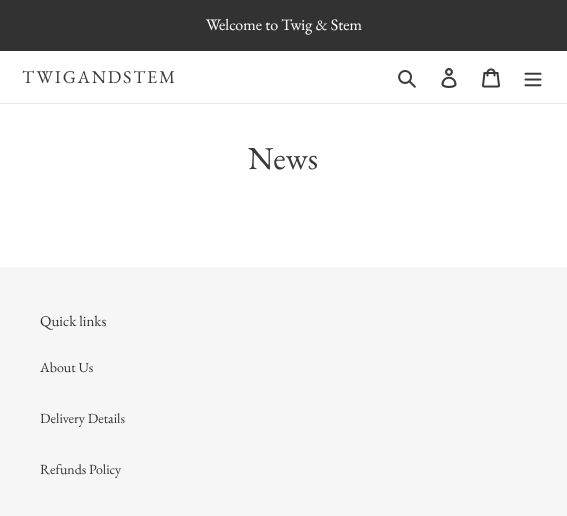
(async () => {
  const canvas = document.querySelector("canvas");
  canvas.width = 567;
  canvas.height = 516;
  const ctx = canvas.getContext("2d");
  ctx.miterLimit = 4;
  ctx.fontKerning = "normal";
  async function loadImage(src) {
    const img = new Image();
    img.src = src;
    await img.decode();
    return img;
  }

  ctx.fillStyle = "#ffffff";
  ctx.fillRect(0, 0, 567, 516);
  ctx.fillStyle = "#333233";
  ctx.fillRect(0, 0, 567, 51);
  ctx.fillStyle = "#ebebeb";
  ctx.fillRect(0, 103, 567, 1);
  ctx.drawImage(await loadImage("img/1.png"), 398, 70, 18, 18);
  ctx.drawImage(await loadImage("img/2.png"), 441, 68, 16, 20);
  ctx.drawImage(await loadImage("img/3.png"), 482, 68, 18, 20);
  ctx.drawImage(await loadImage("img/4.png"), 524, 72, 18, 15);
  ctx.fillStyle = "#f6f6f6";
  ctx.fillRect(0, 267, 567, 249);
  ctx.font = "16px EB Garamond";
  ctx.fillStyle = "#ffffff";
  ctx.fillText("Welcome to Twig & Stem", 206, 30);
  ctx.letterSpacing = "1.75px";
  ctx.font = "18px EB Garamond";
  ctx.fillStyle = "#3a3a3a";
  ctx.fillText("TWIGANDSTEM", 22, 83);
  ctx.letterSpacing = "0px";
  ctx.font = "32px EB Garamond";
  ctx.fillText("News", 248, 169);
  ctx.font = "15px EB Garamond";
  ctx.fillStyle = "#333232";
  ctx.fillText("Quick links", 40, 326);
  ctx.font = "14px EB Garamond";
  for (const [text, x, y] of [
    ["About Us", 40, 372],
    ["Delivery Details", 40, 423],
    ["Refunds Policy", 40, 474],
  ]) {
    ctx.fillText(text, x, y);
  }
})();
